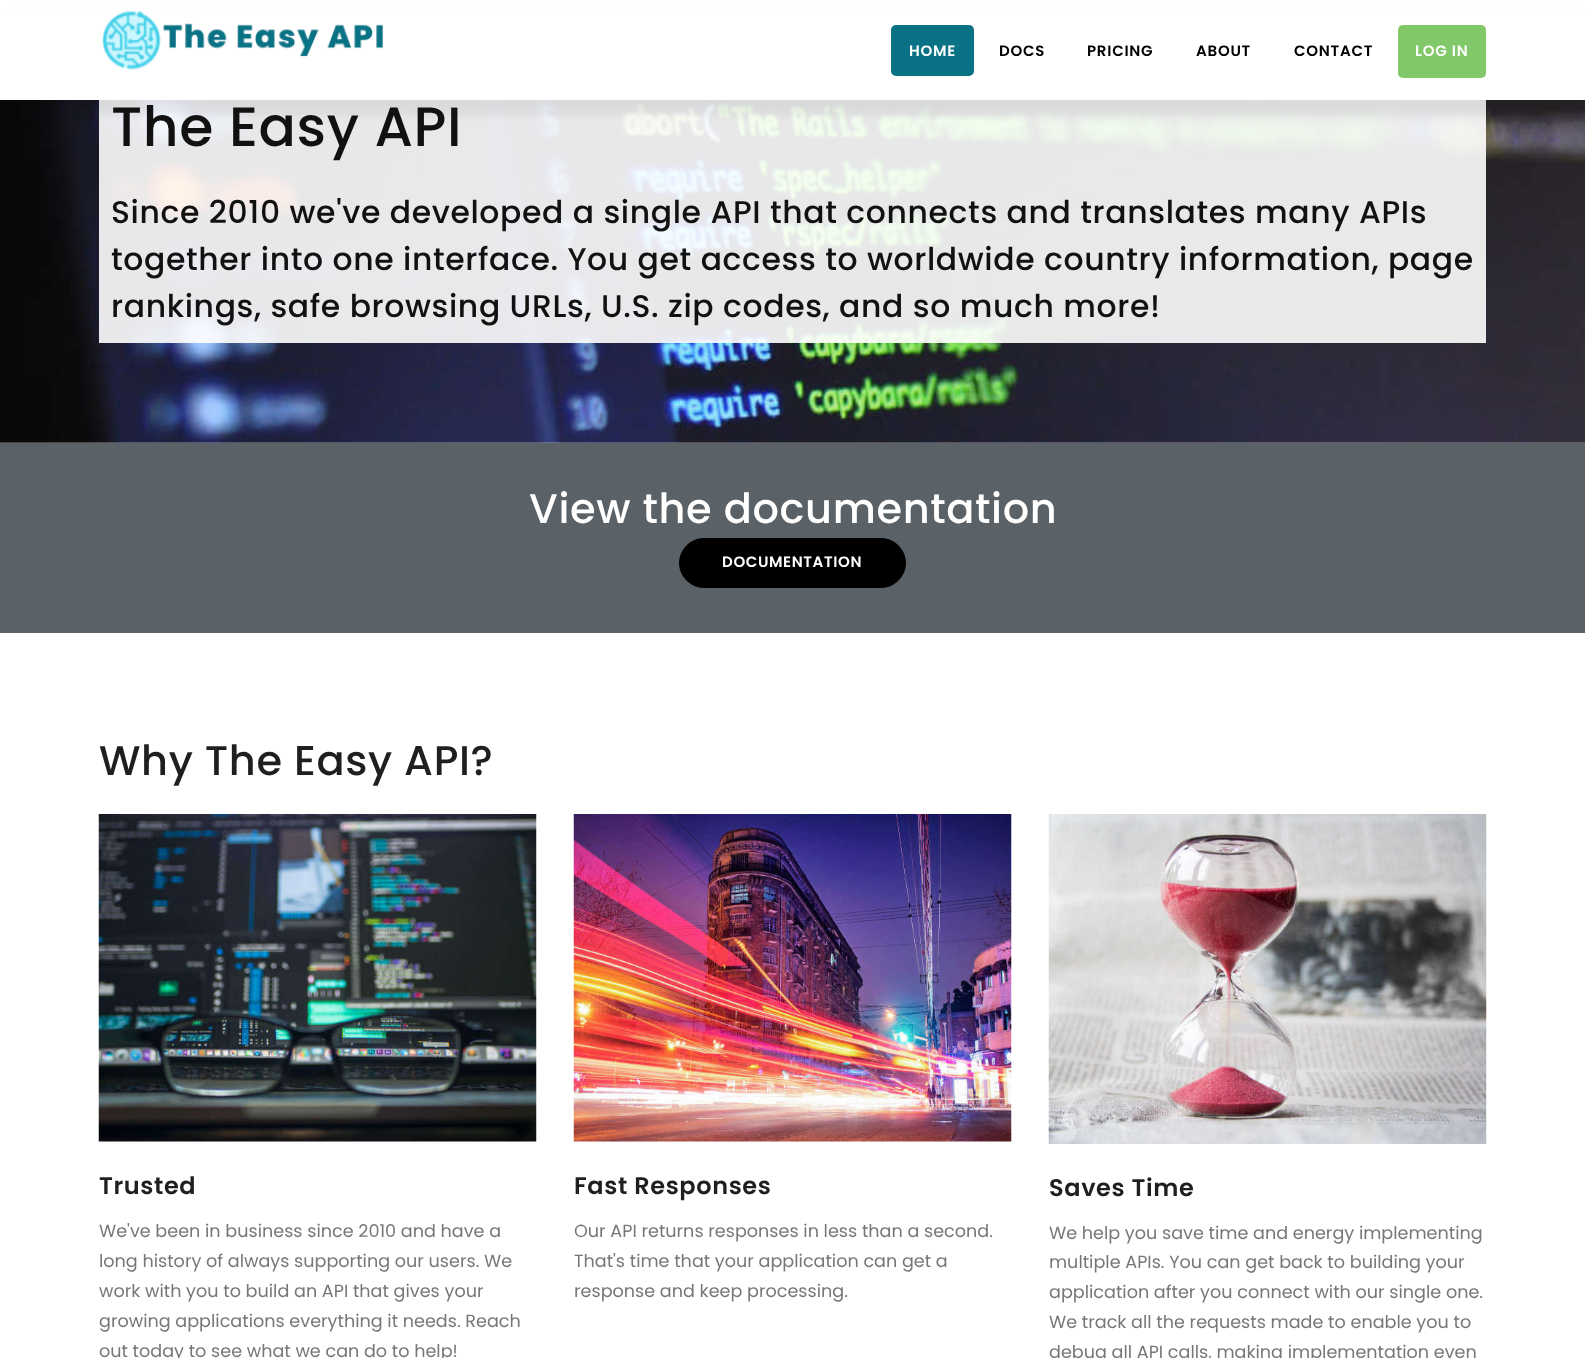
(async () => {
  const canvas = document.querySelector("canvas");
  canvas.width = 1585;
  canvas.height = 1358;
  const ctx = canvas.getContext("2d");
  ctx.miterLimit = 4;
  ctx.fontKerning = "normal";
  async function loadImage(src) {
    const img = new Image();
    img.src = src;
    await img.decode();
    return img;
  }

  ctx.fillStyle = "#ffffff";
  ctx.fillRect(0, 0, 1585, 1358);
  ctx.drawImage(await loadImage("img/2.png"), 0, 100, 1585, 343);
  ctx.fillStyle = "rgba(255, 255, 255, 0.9)";
  ctx.fillRect(99, 100, 1387, 243);
  ctx.fillStyle = "rgba(0, 0, 0, 0.06)";
  ctx.filter = "blur(4px)";
  ctx.beginPath();
  ctx.rect(0, 15, 1585, 100);
  ctx.fill();
  ctx.filter = "none";
  ctx.fillStyle = "#ffffff";
  ctx.fillRect(0, 11, 1585, 89);
  ctx.drawImage(await loadImage("img/1.png"), 102, 10, 282, 60);
  ctx.fillStyle = "#0a7285";
  ctx.beginPath();
  ctx.roundRect(891, 25, 83, 51, 5);
  ctx.fill();
  ctx.fillStyle = "#81c868";
  ctx.beginPath();
  ctx.roundRect(1398, 25, 88, 53, 5);
  ctx.fill();
  ctx.fillStyle = "#5a6268";
  ctx.fillRect(0, 443, 1585, 190);
  ctx.fillStyle = "#000000";
  ctx.beginPath();
  ctx.roundRect(679.5, 538.5, 226, 49, 24.5);
  ctx.fill();
  ctx.strokeStyle = "#000000";
  ctx.stroke();
  ctx.drawImage(await loadImage("img/3.png"), 98, 814, 439, 328);
  ctx.drawImage(await loadImage("img/4.png"), 573, 814, 439, 328);
  ctx.drawImage(await loadImage("img/5.png"), 1048, 814, 439, 330);
  ctx.letterSpacing = "0.75px";
  ctx.font = "600 15px Poppins";
  ctx.fillStyle = "#ffffff";
  ctx.fillText("HOME", 909, 56);
  ctx.fillStyle = "#000000";
  for (const [text, x, y] of [
    ["DOCS", 999, 56],
    ["PRICING", 1087, 56],
    ["ABOUT", 1196, 56],
    ["CONTACT", 1294, 56],
  ]) {
    ctx.fillText(text, x, y);
  }
  ctx.fillStyle = "#ffffff";
  ctx.fillText("LOG IN", 1415, 56);
  ctx.letterSpacing = "0.62px";
  ctx.font = "500 55.25px Poppins";
  ctx.fillStyle = "#111111";
  ctx.fillText("The Easy API", 111, 146);
  ctx.font = "500 31.45px Poppins";
  for (const [text, x, y] of [
    ["Since 2010 we've developed a single API that connects and translates many APIs", 111, 223],
    ["together into one interface. You get access to worldwide country information, page", 111, 270],
    ["rankings, safe browsing URLs, U.S. zip codes, and so much more!", 111, 317],
  ]) {
    ctx.fillText(text, x, y);
  }
  ctx.font = "500 41.5px Poppins";
  ctx.fillStyle = "#ffffff";
  ctx.fillText("View the documentation", 529, 523);
  ctx.font = "600 15px Poppins";
  ctx.fillText("DOCUMENTATION", 722, 567);
  ctx.font = "500 41.5px Poppins";
  ctx.fillStyle = "#1f1f1f";
  ctx.fillText("Why The Easy API?", 99, 775);
  ctx.font = "600 24px Poppins";
  ctx.fillText("Trusted", 99, 1194);
  ctx.letterSpacing = "0px";
  ctx.font = "17.6px Poppins";
  ctx.fillStyle = "#777777";
  for (const [text, x, y] of [
    ["We've been in business since 2010 and have a", 99, 1237],
    ["long history of always supporting our users. We", 99, 1267],
    ["work with you to build an API that gives your", 99, 1297],
    ["growing applications everything it needs. Reach", 99, 1327],
    ["out today to see what we can do to help!", 99, 1357],
  ]) {
    ctx.fillText(text, x, y);
  }
  ctx.letterSpacing = "0.62px";
  ctx.font = "600 24px Poppins";
  ctx.fillStyle = "#1f1f1f";
  ctx.fillText("Fast Responses", 574, 1194);
  ctx.letterSpacing = "0px";
  ctx.font = "17.6px Poppins";
  ctx.fillStyle = "#777777";
  for (const [text, x, y] of [
    ["Our API returns responses in less than a second.", 574, 1237],
    ["That's time that your application can get a", 574, 1267],
    ["response and keep processing.", 574, 1297],
  ]) {
    ctx.fillText(text, x, y);
  }
  ctx.letterSpacing = "0.62px";
  ctx.font = "600 24px Poppins";
  ctx.fillStyle = "#1f1f1f";
  ctx.fillText("Saves Time", 1049, 1196);
  ctx.letterSpacing = "0px";
  ctx.font = "17.6px Poppins";
  ctx.fillStyle = "#777777";
  for (const [text, x, y] of [
    ["We help you save time and energy implementing", 1049, 1239],
    ["multiple APIs. You can get back to building your", 1049, 1268],
    ["application after you connect with our single one.", 1049, 1298],
    ["We track all the requests made to enable you to", 1049, 1328],
    ["debug all API calls, making implementation even", 1049, 1358],
  ]) {
    ctx.fillText(text, x, y);
  }
})();
